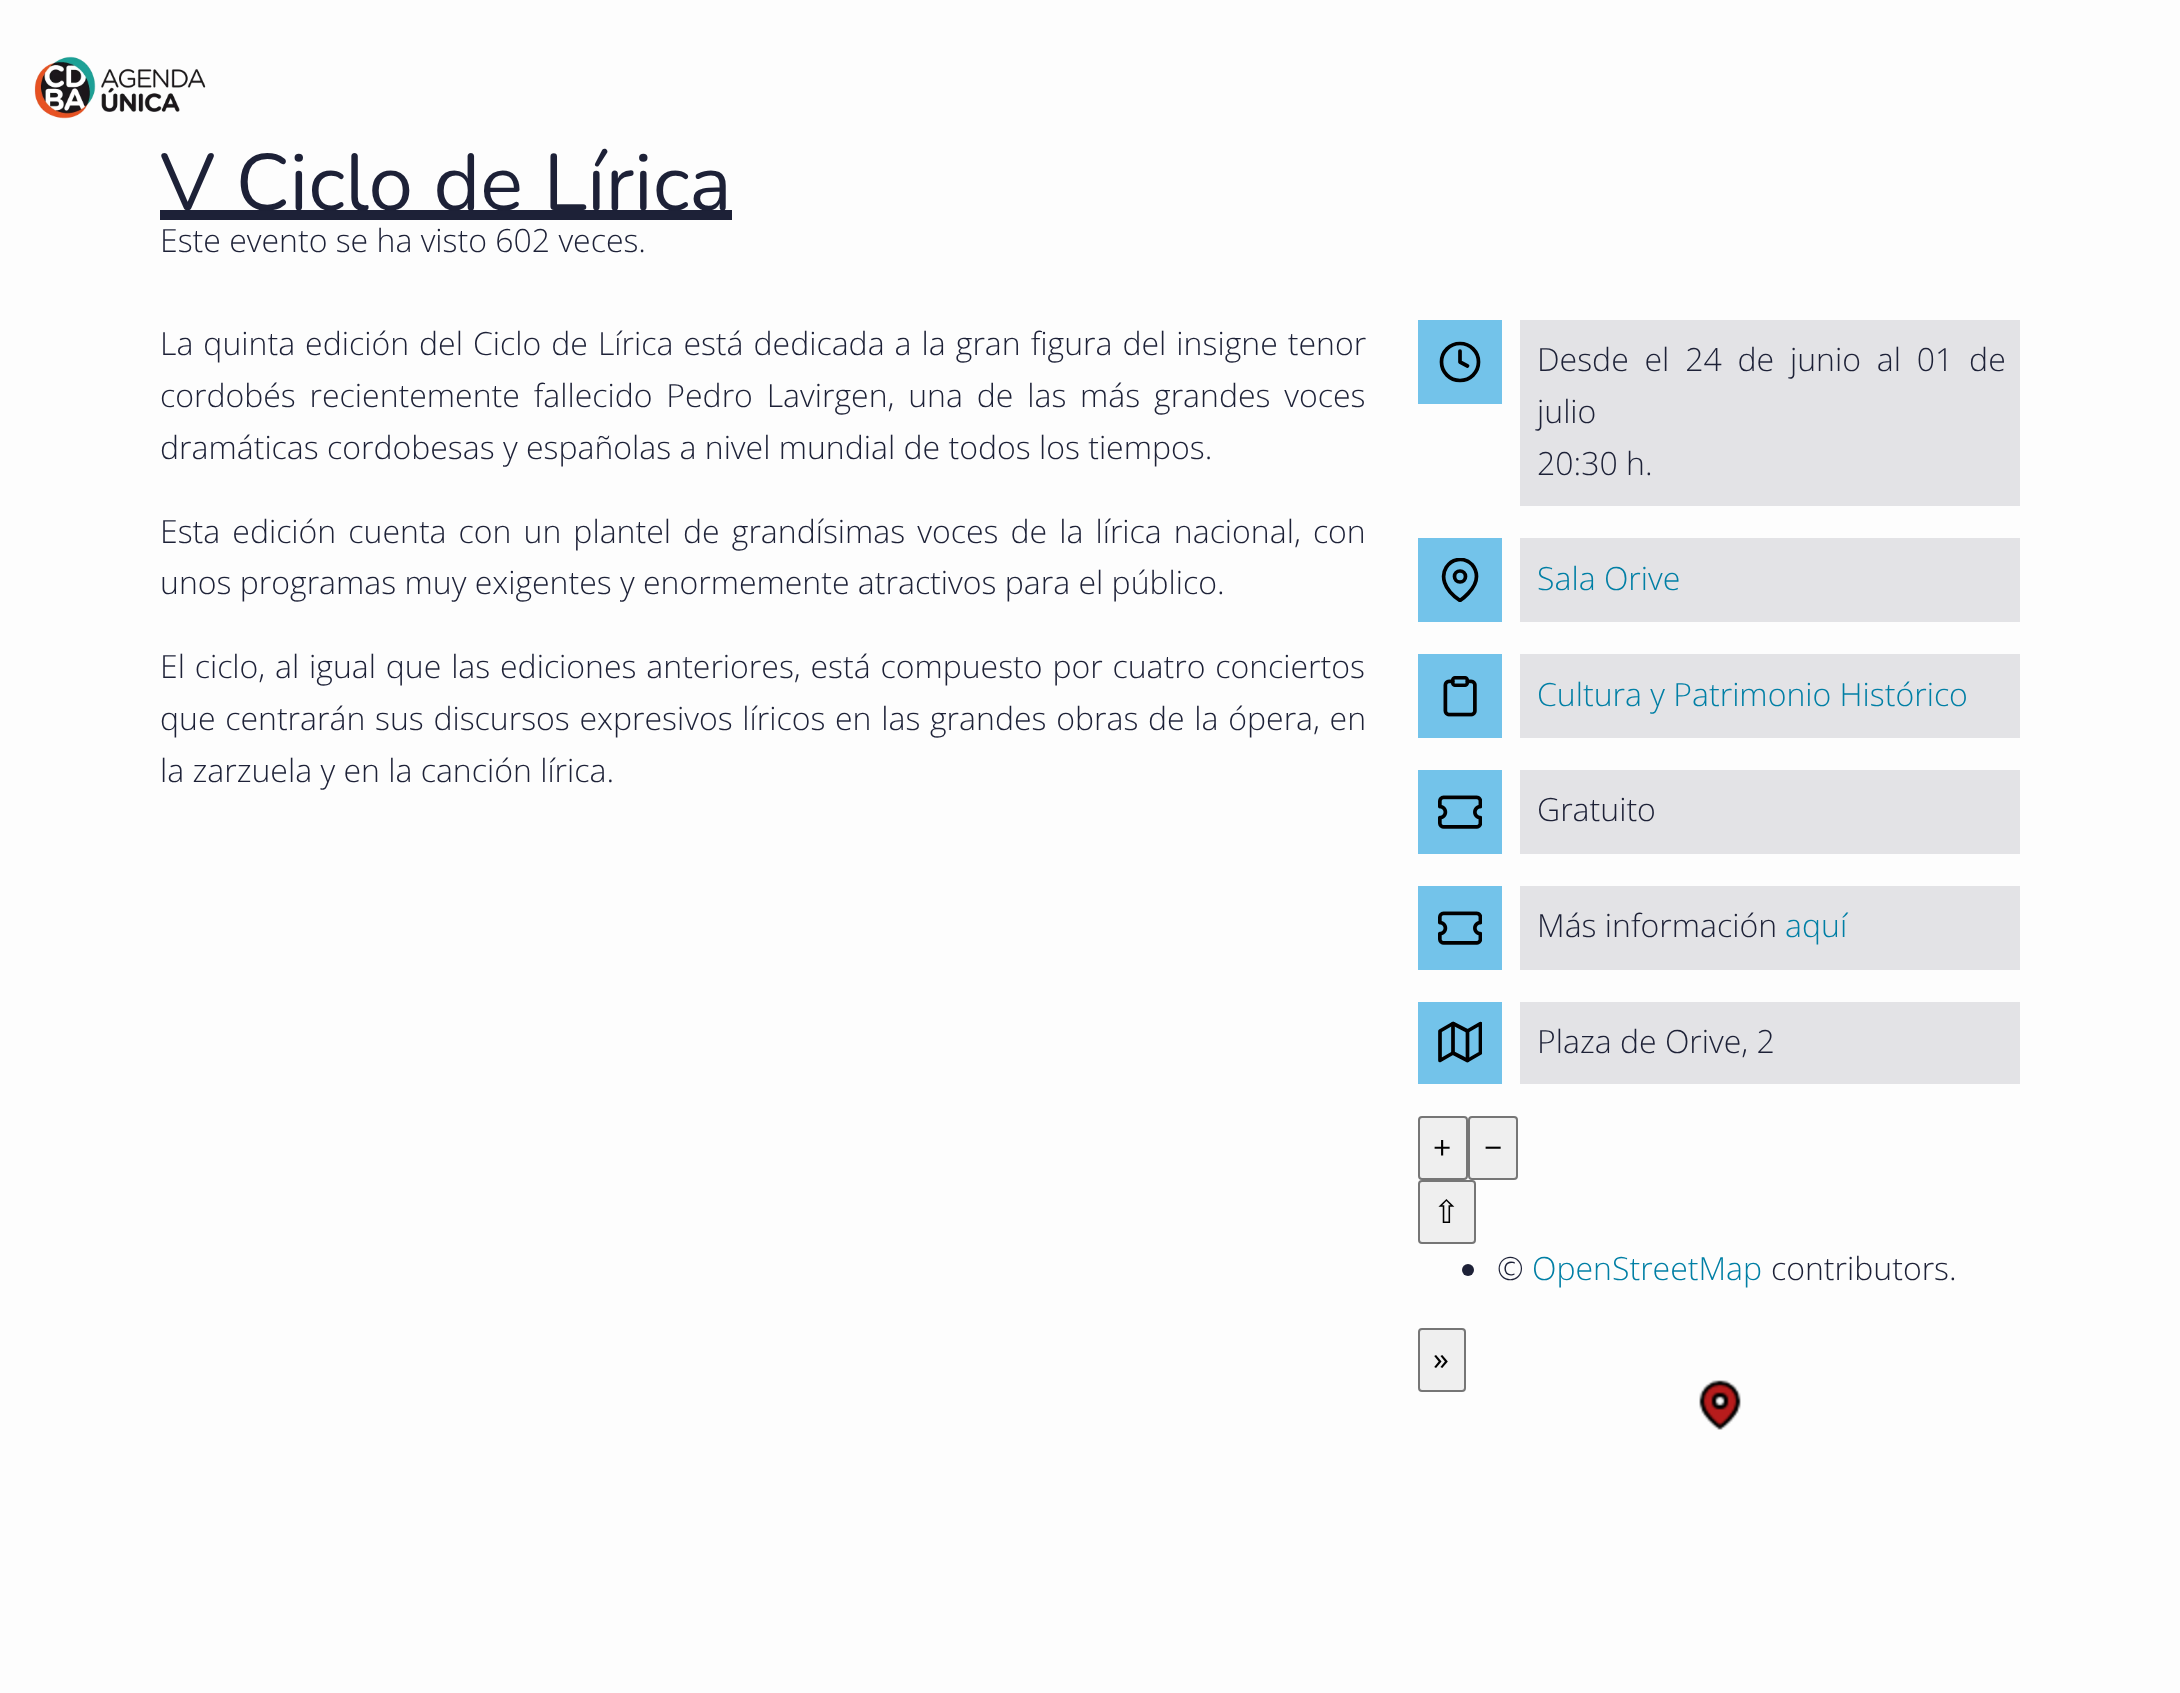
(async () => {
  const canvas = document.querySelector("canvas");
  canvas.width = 2180;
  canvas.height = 1693;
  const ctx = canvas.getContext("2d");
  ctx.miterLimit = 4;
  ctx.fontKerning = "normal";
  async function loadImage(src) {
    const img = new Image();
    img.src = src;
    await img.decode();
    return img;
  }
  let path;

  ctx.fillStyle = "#fdfdfd";
  ctx.fillRect(0, 0, 2180, 1693);
  ctx.drawImage(await loadImage("img/1.png"), 34, 56, 172, 63);
  ctx.fillStyle = "#1d2137";
  ctx.fillRect(160, 210, 572, 10);
  ctx.fillStyle = "#73c3ea";
  ctx.fillRect(1418, 320, 84, 84);
  ctx.beginPath();
  ctx.arc(1460, 362, 18.5, 0, Math.PI * 2);
  ctx.strokeStyle = "#000000";
  ctx.lineWidth = 3.7;
  ctx.stroke();
  path = new Path2D("M1460 351V362L1467.5 366");
  ctx.lineCap = "round";
  ctx.lineJoin = "round";
  ctx.stroke(path);
  ctx.fillStyle = "#e3e3e6";
  ctx.fillRect(1520, 320, 500, 186);
  ctx.fillStyle = "#73c3ea";
  ctx.fillRect(1418, 538, 84, 84);
  ctx.save();
  ctx.beginPath();
  ctx.rect(1438, 558, 44, 44);
  ctx.clip();
  path = new Path2D("M1476.5 576.5C1476.5 589.5 1460 600.5 1460 600.5C1425 577 1454.5 547.5 1472 564.5C1475 568 1476.5 572 1476.5 576.5Z");
  ctx.stroke(path);
  ctx.restore();
  ctx.beginPath();
  ctx.arc(1460, 576.5, 5.5, 0, Math.PI * 2);
  ctx.stroke();
  ctx.fillStyle = "#e3e3e6";
  ctx.fillRect(1520, 538, 500, 84);
  ctx.fillStyle = "#73c3ea";
  ctx.fillRect(1418, 654, 84, 84);
  ctx.drawImage(await loadImage("img/2.png"), 1443, 676, 34, 41);
  ctx.fillStyle = "#e3e3e6";
  ctx.fillRect(1520, 654, 500, 84);
  ctx.fillStyle = "#73c3ea";
  ctx.fillRect(1418, 770, 84, 84);
  ctx.drawImage(await loadImage("img/3.png"), 1438, 795, 44, 34);
  ctx.fillStyle = "#e3e3e6";
  ctx.fillRect(1520, 770, 500, 84);
  ctx.fillStyle = "#73c3ea";
  ctx.fillRect(1418, 886, 84, 84);
  ctx.drawImage(await loadImage("img/3.png"), 1438, 911, 44, 34);
  ctx.fillStyle = "#e3e3e6";
  ctx.fillRect(1520, 886, 500, 84);
  ctx.fillStyle = "#73c3ea";
  ctx.fillRect(1418, 1002, 84, 82);
  ctx.save();
  ctx.beginPath();
  ctx.rect(1438, 1020, 44, 46);
  ctx.clip();
  path = new Path2D("M1440 1031V1060.5L1453 1053L1467.5 1060.5L1480.5 1053V1023.5L1467.5 1031L1453 1023.5Z");
  ctx.stroke(path);
  ctx.restore();
  path = new Path2D("M1453 1023.5V1053M1467.5 1031V1060.5");
  ctx.stroke(path);
  ctx.fillStyle = "#e3e3e6";
  ctx.fillRect(1520, 1002, 500, 82);
  ctx.fillStyle = "#efefef";
  ctx.beginPath();
  ctx.roundRect(1419, 1117, 48, 62, 3);
  ctx.fill();
  ctx.strokeStyle = "#767676";
  ctx.lineWidth = 2;
  ctx.lineJoin = "miter";
  ctx.stroke();
  ctx.beginPath();
  ctx.roundRect(1469, 1117, 48, 62, 3);
  ctx.fill();
  ctx.stroke();
  ctx.beginPath();
  ctx.roundRect(1419, 1181, 56, 62, 3);
  ctx.fill();
  ctx.stroke();
  ctx.fillStyle = "#1d2137";
  ctx.beginPath();
  ctx.arc(1468, 1270, 6, 0, Math.PI * 2);
  ctx.fill();
  ctx.fillStyle = "#efefef";
  ctx.beginPath();
  ctx.roundRect(1419, 1329, 46, 62, 3);
  ctx.fill();
  ctx.stroke();
  ctx.drawImage(await loadImage("img/4.png"), 1699, 1380, 42, 50);
  ctx.font = "200 80px Nunito";
  ctx.fillStyle = "#1d2137";
  ctx.fillText("V Ciclo de Lírica", 160, 210);
  ctx.font = "300 32px Open Sans";
  ctx.fillText("Este evento se ha visto 602 veces.", 160, 252);
  ctx.wordSpacing = "1.7px";
  ctx.fillText("La quinta edición del Ciclo de Lírica está dedicada a la gran figura del insigne tenor", 160, 355);
  ctx.wordSpacing = "5.5px";
  ctx.fillText("cordobés recientemente fallecido Pedro Lavirgen, una de las más grandes voces", 160, 407);
  ctx.wordSpacing = "0px";
  ctx.fillText("dramáticas cordobesas y españolas a nivel mundial de todos los tiempos.", 160, 459);
  ctx.wordSpacing = "3.75px";
  ctx.fillText("Esta edición cuenta con un plantel de grandísimas voces de la lírica nacional, con", 160, 543);
  ctx.wordSpacing = "0px";
  ctx.fillText("unos programas muy exigentes y enormemente atractivos para el público.", 160, 594);
  ctx.wordSpacing = "1.5px";
  ctx.fillText("El ciclo, al igual que las ediciones anteriores, está compuesto por cuatro conciertos", 160, 678);
  ctx.wordSpacing = "1.4px";
  ctx.fillText("que centrarán sus discursos expresivos líricos en las grandes obras de la ópera, en", 160, 730);
  ctx.wordSpacing = "0px";
  ctx.fillText("la zarzuela y en la canción lírica.", 160, 782);
  ctx.wordSpacing = "7.5px";
  ctx.fillText("Desde el 24 de junio al 01 de", 1537, 371);
  ctx.wordSpacing = "0px";
  ctx.fillText("julio", 1537, 423);
  ctx.fillText("20:30 h.", 1537, 475);
  ctx.fillStyle = "#007fa5";
  ctx.fillText("Sala Orive", 1537, 590);
  ctx.fillText("Cultura y Patrimonio Histórico", 1537, 706);
  ctx.fillStyle = "#1d2137";
  ctx.fillText("Gratuito", 1537, 821);
  ctx.fillText("Más información", 1537, 937);
  ctx.fillStyle = "#007fa5";
  ctx.fillText("aquí", 1785, 937);
  ctx.fillStyle = "#1d2137";
  ctx.fillText("Plaza de Orive, 2", 1537, 1053);
  ctx.font = "32px Open Sans";
  ctx.fillStyle = "#000000";
  ctx.fillText("+", 1433, 1159);
  ctx.fillText("−", 1484, 1159);
  ctx.font = "32px DejaVu Sans";
  ctx.fillText("⇧", 1433, 1223);
  ctx.font = "300 32px Open Sans";
  ctx.fillStyle = "#1d2137";
  ctx.fillText("©", 1497, 1280);
  ctx.fillStyle = "#007fa5";
  ctx.fillText("OpenStreetMap", 1532, 1280);
  ctx.fillStyle = "#1d2137";
  ctx.fillText("contributors.", 1771, 1280);
  ctx.font = "32px Open Sans";
  ctx.fillStyle = "#000000";
  ctx.fillText("»", 1433, 1370);
})();
